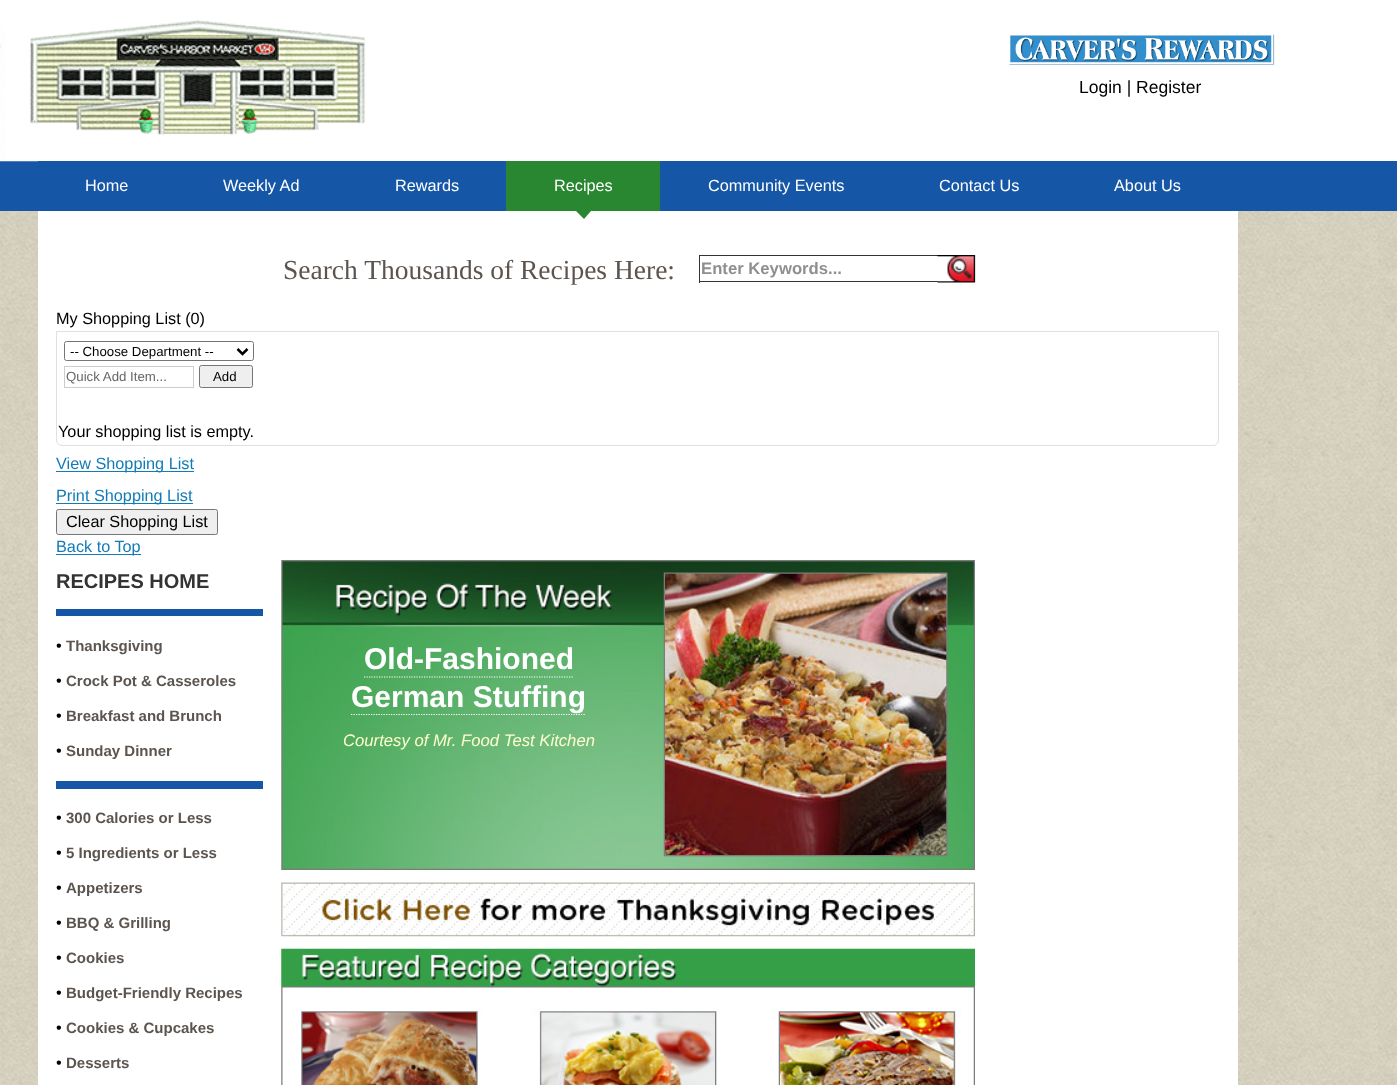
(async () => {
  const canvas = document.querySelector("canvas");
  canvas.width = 1397;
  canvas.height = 1085;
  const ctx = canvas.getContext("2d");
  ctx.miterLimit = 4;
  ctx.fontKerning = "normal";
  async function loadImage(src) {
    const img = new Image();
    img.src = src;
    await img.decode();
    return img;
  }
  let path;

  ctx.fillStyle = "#e8e2ce";
  ctx.fillRect(0, 0, 1397, 1085);
  ctx.drawImage(await loadImage("img/1.png"), 0, 211, 1397, 874);
  ctx.fillStyle = "#ffffff";
  ctx.fillRect(0, 0, 1397, 161);
  ctx.fillStyle = "#1557a6";
  ctx.fillRect(0, 161, 1397, 50);
  ctx.drawImage(await loadImage("img/2.png"), 0, 20, 394, 142);
  ctx.drawImage(await loadImage("img/3.png"), 1009, 34, 266, 31);
  for (const [x, y, w, h, color] of [
    [38, 161, 356, 1, "#1557a6"],
    [506, 161, 154, 50, "#288730"],
    [38, 211, 1200, 874, "#ffffff"],
  ]) {
    ctx.fillStyle = color;
    ctx.fillRect(x, y, w, h);
  }
  ctx.fillStyle = "#288730";
  path = new Path2D("M576 211H591L584 219Z");
  ctx.fill(path);
  for (const [x, y, w, h, color] of [
    [699, 255, 239, 1, "#333333"],
    [699, 281, 239, 1, "#333333"],
    [699, 255, 1, 28, "#333333"],
  ]) {
    ctx.fillStyle = color;
    ctx.fillRect(x, y, w, h);
  }
  ctx.drawImage(await loadImage("img/4.png"), 937, 255, 39, 28);
  ctx.beginPath();
  ctx.roundRect(56.5, 331.5, 1162, 114, [0, 0, 5.5, 5.5]);
  ctx.strokeStyle = "#e0e0e0";
  ctx.stroke();
  ctx.beginPath();
  ctx.roundRect(64.5, 341.5, 189, 19, 2);
  ctx.strokeStyle = "#767676";
  ctx.stroke();
  path = new Path2D("M237.5 349L242.5 354L247.5 349");
  ctx.strokeStyle = "#000000";
  ctx.lineWidth = 2.5;
  ctx.stroke(path);
  ctx.strokeStyle = "#cccccc";
  ctx.lineWidth = 1;
  ctx.strokeRect(64.5, 366.5, 129, 21);
  ctx.fillStyle = "#efefef";
  ctx.beginPath();
  ctx.roundRect(199.5, 365.5, 53, 22, 2);
  ctx.fill();
  ctx.strokeStyle = "#767676";
  ctx.stroke();
  ctx.fillStyle = "#117bb8";
  ctx.fillRect(56, 471, 138, 1);
  ctx.fillRect(56, 503, 137, 1);
  ctx.fillStyle = "#efefef";
  ctx.beginPath();
  ctx.roundRect(56.5, 509.5, 161, 25, 2);
  ctx.fill();
  ctx.stroke();
  for (const [x, y, w, h, color] of [
    [56, 554, 85, 1, "#117bb8"],
    [56, 609, 207, 7, "#1557a6"],
    [56, 781, 207, 8, "#1557a6"],
  ]) {
    ctx.fillStyle = color;
    ctx.fillRect(x, y, w, h);
  }
  ctx.drawImage(await loadImage("img/5.png"), 281, 560, 694, 310);
  path = new Path2D("M364 677H574");
  ctx.strokeStyle = "#ffffff";
  ctx.lineWidth = 1.2;
  ctx.setLineDash([1.25, 1.25]);
  ctx.stroke(path);
  path = new Path2D("M351 714.5H586");
  ctx.stroke(path);
  ctx.drawImage(await loadImage("img/6.png"), 665, 573, 282, 282);
  ctx.drawImage(await loadImage("img/7.png"), 281, 882, 694, 55);
  ctx.drawImage(await loadImage("img/8.png"), 281, 948, 694, 137);
  ctx.drawImage(await loadImage("img/9.png"), 302, 1012, 175, 73);
  ctx.drawImage(await loadImage("img/10.png"), 541, 1012, 174, 73);
  ctx.drawImage(await loadImage("img/11.png"), 780, 1012, 174, 73);
  ctx.font = "17.5px Liberation Sans";
  ctx.fillStyle = "#000000";
  ctx.fillText("Login | Register", 1079, 93);
  ctx.font = "16.25px Liberation Sans";
  ctx.fillStyle = "#ffffff";
  for (const [text, x, y] of [
    ["Home", 85, 191],
    ["Weekly Ad", 223, 191],
    ["Rewards", 395, 191],
    ["Recipes", 554, 191],
    ["Community Events", 708, 191],
    ["Contact Us", 939, 191],
    ["About Us", 1114, 191],
  ]) {
    ctx.fillText(text, x, y);
  }
  ctx.font = "27.5px Liberation Serif";
  ctx.fillStyle = "#5c554f";
  ctx.fillText("Search Thousands of Recipes Here:", 283, 279);
  ctx.font = "bold 16.7px Liberation Sans";
  ctx.fillStyle = "#8f8f8f";
  ctx.fillText("Enter Keywords...", 701, 274);
  ctx.font = "16.25px Liberation Sans";
  ctx.fillStyle = "#000000";
  ctx.fillText("My Shopping List (0)", 56, 324);
  ctx.font = "13.25px Liberation Sans";
  ctx.fillText("-- Choose Department --", 70, 356);
  ctx.fillStyle = "#666666";
  ctx.fillText("Quick Add Item...", 66, 381);
  ctx.fillStyle = "#000000";
  ctx.fillText("Add", 213, 381);
  ctx.font = "16.25px Liberation Sans";
  ctx.fillText("Your shopping list is empty.", 58, 437);
  ctx.fillStyle = "#117bb8";
  ctx.fillText("View Shopping List", 56, 469);
  ctx.fillText("Print Shopping List", 56, 501);
  ctx.fillStyle = "#000000";
  ctx.fillText("Clear Shopping List", 66, 527);
  ctx.fillStyle = "#117bb8";
  ctx.fillText("Back to Top", 56, 552);
  ctx.font = "bold 20px Liberation Sans";
  ctx.fillStyle = "#333333";
  ctx.fillText("RECIPES HOME", 56, 588);
  ctx.font = "16.25px Liberation Sans";
  ctx.fillStyle = "#000000";
  ctx.fillText("•", 56, 651);
  ctx.font = "bold 15px Liberation Sans";
  ctx.fillStyle = "#5c554f";
  ctx.fillText("Thanksgiving", 66, 651);
  ctx.font = "16.25px Liberation Sans";
  ctx.fillStyle = "#000000";
  ctx.fillText("•", 56, 686);
  ctx.font = "bold 15px Liberation Sans";
  ctx.fillStyle = "#5c554f";
  ctx.fillText("Crock Pot & Casseroles", 66, 686);
  ctx.font = "16.25px Liberation Sans";
  ctx.fillStyle = "#000000";
  ctx.fillText("•", 56, 721);
  ctx.font = "bold 15px Liberation Sans";
  ctx.fillStyle = "#5c554f";
  ctx.fillText("Breakfast and Brunch", 66, 721);
  ctx.font = "16.25px Liberation Sans";
  ctx.fillStyle = "#000000";
  ctx.fillText("•", 56, 756);
  ctx.font = "bold 15px Liberation Sans";
  ctx.fillStyle = "#5c554f";
  ctx.fillText("Sunday Dinner", 66, 756);
  ctx.font = "16.25px Liberation Sans";
  ctx.fillStyle = "#000000";
  ctx.fillText("•", 56, 823);
  ctx.font = "bold 15px Liberation Sans";
  ctx.fillStyle = "#5c554f";
  ctx.fillText("300 Calories or Less", 66, 823);
  ctx.font = "16.25px Liberation Sans";
  ctx.fillStyle = "#000000";
  ctx.fillText("•", 56, 858);
  ctx.font = "bold 15px Liberation Sans";
  ctx.fillStyle = "#5c554f";
  ctx.fillText("5 Ingredients or Less", 66, 858);
  ctx.font = "16.25px Liberation Sans";
  ctx.fillStyle = "#000000";
  ctx.fillText("•", 56, 893);
  ctx.font = "bold 15px Liberation Sans";
  ctx.fillStyle = "#5c554f";
  ctx.fillText("Appetizers", 66, 893);
  ctx.font = "16.25px Liberation Sans";
  ctx.fillStyle = "#000000";
  ctx.fillText("•", 56, 928);
  ctx.font = "bold 15px Liberation Sans";
  ctx.fillStyle = "#5c554f";
  ctx.fillText("BBQ & Grilling", 66, 928);
  ctx.font = "16.25px Liberation Sans";
  ctx.fillStyle = "#000000";
  ctx.fillText("•", 56, 963);
  ctx.font = "bold 15px Liberation Sans";
  ctx.fillStyle = "#5c554f";
  ctx.fillText("Cookies", 66, 963);
  ctx.font = "16.25px Liberation Sans";
  ctx.fillStyle = "#000000";
  ctx.fillText("•", 56, 998);
  ctx.font = "bold 15px Liberation Sans";
  ctx.fillStyle = "#5c554f";
  ctx.fillText("Budget-Friendly Recipes", 66, 998);
  ctx.font = "16.25px Liberation Sans";
  ctx.fillStyle = "#000000";
  ctx.fillText("•", 56, 1033);
  ctx.font = "bold 15px Liberation Sans";
  ctx.fillStyle = "#5c554f";
  ctx.fillText("Cookies & Cupcakes", 66, 1033);
  ctx.font = "16.25px Liberation Sans";
  ctx.fillStyle = "#000000";
  ctx.fillText("•", 56, 1068);
  ctx.font = "bold 15px Liberation Sans";
  ctx.fillStyle = "#5c554f";
  ctx.fillText("Desserts", 66, 1068);
  ctx.font = "bold 30px Liberation Sans";
  ctx.fillStyle = "#ffffff";
  ctx.fillText("Old-Fashioned", 364, 669);
  ctx.fillText("German Stuffing", 351, 707);
  ctx.font = "italic 16.7px Liberation Sans";
  ctx.fillStyle = "#ffffcc";
  ctx.fillText("Courtesy of Mr. Food Test Kitchen", 343, 746);
})();
